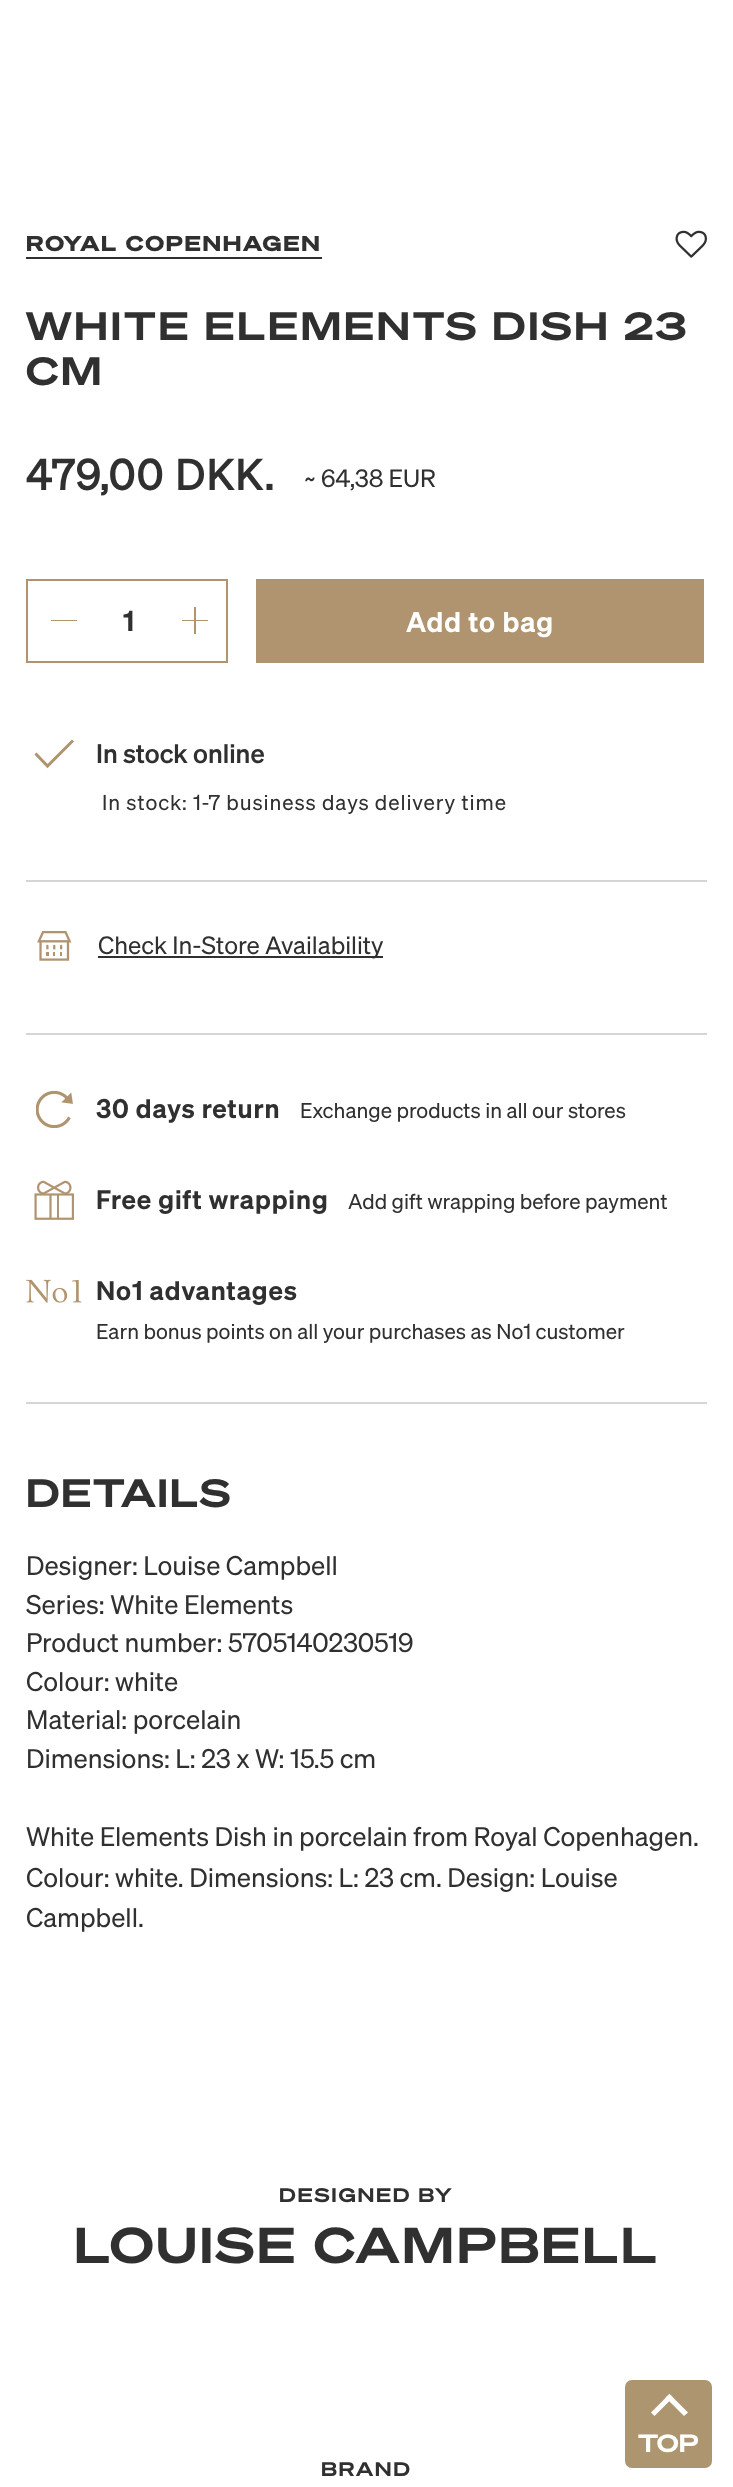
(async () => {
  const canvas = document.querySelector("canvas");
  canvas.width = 733;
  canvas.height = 2487;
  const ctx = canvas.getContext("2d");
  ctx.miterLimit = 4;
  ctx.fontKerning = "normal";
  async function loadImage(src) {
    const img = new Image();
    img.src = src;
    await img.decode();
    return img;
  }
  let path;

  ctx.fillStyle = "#ffffff";
  ctx.fillRect(0, 0, 733, 2487);
  ctx.fillStyle = "#303030";
  ctx.fillRect(26, 257, 296, 2);
  ctx.drawImage(await loadImage("img/1.png"), 675, 230, 32, 28);
  ctx.strokeStyle = "#b0946f";
  ctx.lineWidth = 2;
  ctx.strokeRect(27, 580, 200, 82);
  for (const [x, y, w, h, color] of [
    [51, 620, 26, 1, "#b0946f"],
    [182, 620, 26, 1, "#b0946f"],
    [194, 607, 2, 27, "#b0946f"],
    [256, 579, 448, 84, "#b0946f"],
  ]) {
    ctx.fillStyle = color;
    ctx.fillRect(x, y, w, h);
  }
  path = new Path2D("M72 741.5L47.5 766L36.5 754.5");
  ctx.lineWidth = 3;
  ctx.lineCap = "square";
  ctx.stroke(path);
  ctx.fillStyle = "#d5d5d5";
  ctx.fillRect(26, 880, 681, 2);
  ctx.drawImage(await loadImage("img/2.png"), 37, 931, 35, 30);
  ctx.fillStyle = "#303030";
  ctx.fillRect(98, 956, 285, 2);
  ctx.fillStyle = "#d5d5d5";
  ctx.fillRect(26, 1033, 681, 2);
  ctx.drawImage(await loadImage("img/3.png"), 36, 1091, 37, 37);
  ctx.drawImage(await loadImage("img/4.png"), 34, 1180, 40, 40);
  ctx.drawImage(await loadImage("img/5.png"), 26, 1279, 56, 24);
  ctx.fillRect(26, 1402, 681, 2);
  ctx.fillStyle = "#ad956f";
  ctx.beginPath();
  ctx.roundRect(625, 2380, 87, 88, 7);
  ctx.fill();
  ctx.fillStyle = "#ffffff";
  path = new Path2D("M654.5 2416L651 2412.5L669.5 2394L673 2397.5Z");
  ctx.fill(path);
  path = new Path2D("M684 2416L665.5 2397.5L669.5 2394L688 2412.5Z");
  ctx.fill(path);
  ctx.letterSpacing = "1.75px";
  ctx.font = "800 21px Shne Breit";
  ctx.fillStyle = "#303030";
  ctx.fillText("ROYAL COPENHAGEN", 26, 251);
  ctx.letterSpacing = "2.6px";
  ctx.font = "bold 38.5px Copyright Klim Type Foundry";
  ctx.fillText("WHITE ELEMENTS DISH 23", 26, 340);
  ctx.fillText("CM", 26, 385);
  ctx.letterSpacing = "1.75px";
  ctx.font = "bold 42px 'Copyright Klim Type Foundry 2'";
  ctx.fillText("479,00 DKK.", 26, 490);
  ctx.letterSpacing = "0px";
  ctx.font = "24.5px Copyright Klim Type Foundry";
  ctx.fillText("~ 64,38 EUR", 304, 487);
  ctx.font = "600 28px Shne";
  ctx.fillText("1", 123, 631);
  ctx.letterSpacing = "0.9px";
  ctx.fillStyle = "#ffffff";
  ctx.fillText("Add to bag", 406, 632);
  ctx.letterSpacing = "0px";
  ctx.font = "500 26.25px Shne";
  ctx.fillStyle = "#303030";
  ctx.fillText("In stock online", 96, 763);
  ctx.letterSpacing = "0.9px";
  ctx.font = "21px Copyright Klim Type Foundry";
  ctx.fillText("In stock: 1-7 business days delivery time", 102, 810);
  ctx.letterSpacing = "0px";
  ctx.font = "24.5px Copyright Klim Type Foundry";
  ctx.fillText("Check In-Store Availability", 98, 954);
  ctx.letterSpacing = "0.9px";
  ctx.font = "600 26.25px Shne";
  ctx.fillText("30 days return", 96, 1118);
  ctx.letterSpacing = "0px";
  ctx.font = "21px Copyright Klim Type Foundry";
  ctx.fillText("Exchange products in all our stores", 300, 1118);
  ctx.letterSpacing = "0.9px";
  ctx.font = "600 26.25px Shne";
  ctx.fillText("Free gift wrapping", 96, 1209);
  ctx.letterSpacing = "0px";
  ctx.font = "21px Copyright Klim Type Foundry";
  ctx.fillText("Add gift wrapping before payment", 348, 1209);
  ctx.letterSpacing = "0.9px";
  ctx.font = "600 26.25px Shne";
  ctx.fillText("No1 advantages", 96, 1300);
  ctx.letterSpacing = "0px";
  ctx.font = "21px Copyright Klim Type Foundry";
  ctx.fillText("Earn bonus points on all your purchases as No1 customer", 96, 1339);
  ctx.letterSpacing = "1.75px";
  ctx.font = "bold 38.5px Copyright Klim Type Foundry";
  ctx.fillText("DETAILS", 26, 1507);
  ctx.letterSpacing = "0px";
  ctx.font = "26.25px Copyright Klim Type Foundry";
  for (const [text, x, y] of [
    ["Designer: Louise Campbell", 26, 1575],
    ["Series: White Elements", 26, 1614],
    ["Product number: 5705140230519", 26, 1652],
    ["Colour: white", 26, 1691],
    ["Material: porcelain", 26, 1729],
    ["Dimensions: L: 23 x W: 15.5 cm", 26, 1768],
    ["White Elements Dish in porcelain from Royal Copenhagen.", 26, 1846],
    ["Colour: white. Dimensions: L: 23 cm. Design: Louise", 26, 1887],
    ["Campbell.", 26, 1927],
  ]) {
    ctx.fillText(text, x, y);
  }
  ctx.letterSpacing = "1.75px";
  ctx.font = "bold 19.25px Copyright Klim Type Foundry";
  ctx.fillText("DESIGNED BY", 279, 2202);
  ctx.letterSpacing = "2.6px";
  ctx.font = "bold 49px Copyright Klim Type Foundry";
  ctx.fillText("LOUISE CAMPBELL", 74, 2263);
  ctx.letterSpacing = "1.75px";
  ctx.font = "bold 19.25px Copyright Klim Type Foundry";
  ctx.fillText("BRAND", 321, 2476);
  ctx.letterSpacing = "0px";
  ctx.font = "bold 24.5px Copyright Klim Type Foundry";
  ctx.fillStyle = "#ffffff";
  ctx.fillText("TOP", 638, 2452);
})();
